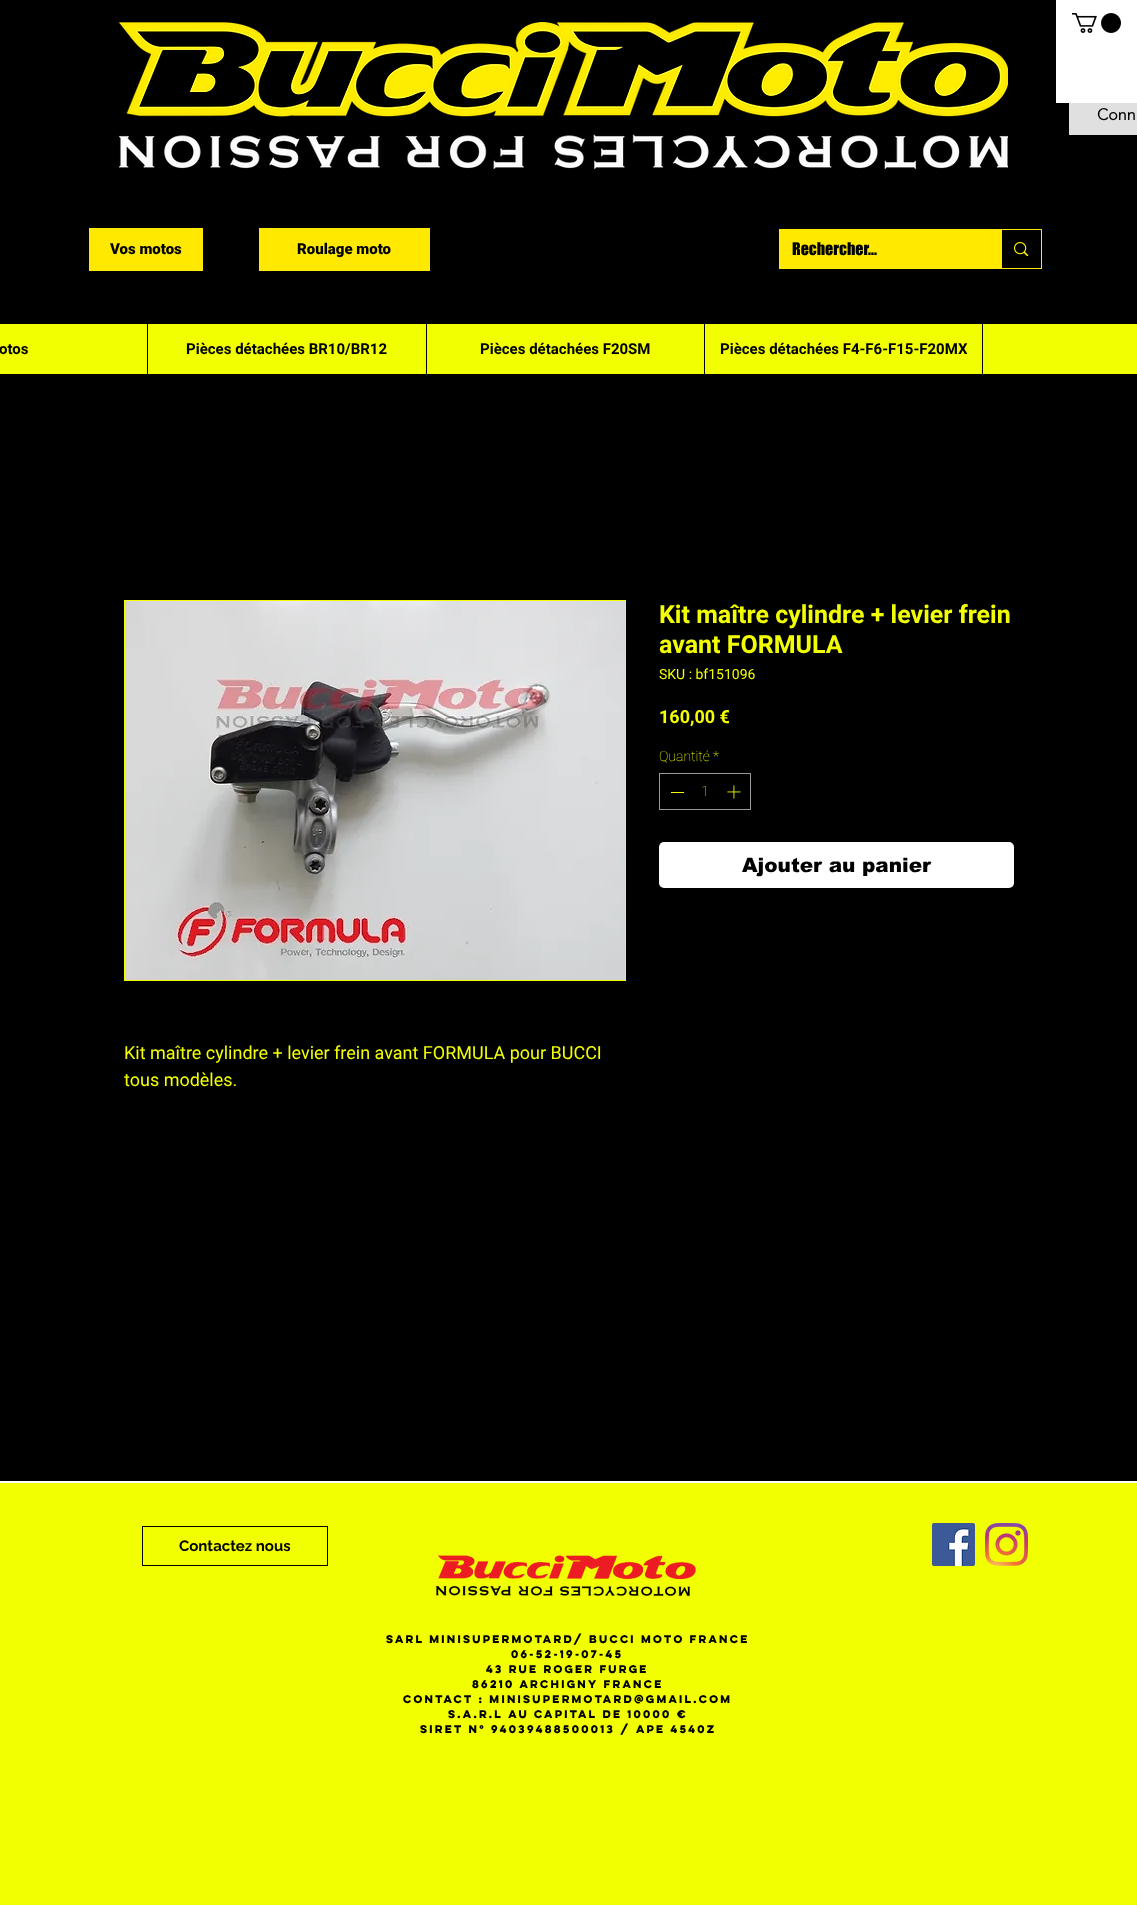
(async () => {
  const canvas = document.querySelector("canvas");
  canvas.width = 1137;
  canvas.height = 1905;
  const ctx = canvas.getContext("2d");
  ctx.miterLimit = 4;
  ctx.fontKerning = "normal";
  async function loadImage(src) {
    const img = new Image();
    img.src = src;
    await img.decode();
    return img;
  }

  ctx.fillStyle = "#000000";
  ctx.fillRect(0, 0, 1137, 1905);
  ctx.fillStyle = "#ffffff";
  ctx.fillRect(1056, 0, 81, 103);
  ctx.drawImage(await loadImage("img/1.png"), 1072, 13, 49, 20);
  ctx.drawImage(await loadImage("img/2.png"), 119, 22, 889, 147);
  for (const [x, y, w, h, color] of [
    [1069, 103, 68, 32, "#e0e0e0"],
    [89, 228, 114, 43, "#ffe900"],
    [259, 228, 171, 43, "#ffe900"],
  ]) {
    ctx.fillStyle = color;
    ctx.fillRect(x, y, w, h);
  }
  ctx.strokeStyle = "#ffe900";
  ctx.strokeRect(779.5, 229.5, 262, 39);
  ctx.fillRect(780, 230, 222, 38);
  ctx.drawImage(await loadImage("img/3.png"), 1014, 242, 15, 14);
  for (const [x, y, w, h, color] of [
    [0, 324, 1137, 50, "#f2ff00"],
    [147, 324, 1, 50, "#000000"],
    [426, 324, 1, 50, "#000000"],
    [704, 324, 1, 50, "#000000"],
    [982, 324, 1, 50, "#000000"],
  ]) {
    ctx.fillStyle = color;
    ctx.fillRect(x, y, w, h);
  }
  ctx.strokeStyle = "#999999";
  ctx.strokeRect(659.5, 773.5, 91, 36);
  ctx.fillStyle = "#f2ff00";
  ctx.fillRect(671, 792, 13, 1);
  ctx.drawImage(await loadImage("img/4.png"), 727, 785, 14, 14);
  ctx.fillStyle = "#ffffff";
  ctx.beginPath();
  ctx.roundRect(659, 842, 355, 46, 5);
  ctx.fill();
  ctx.strokeStyle = "#f2ff00";
  ctx.strokeRect(124.5, 600.5, 501, 380);
  ctx.drawImage(await loadImage("img/5.png"), 125, 601, 500, 379);
  ctx.fillStyle = "#f2ff00";
  ctx.fillRect(0, 1483, 1137, 422);
  ctx.fillStyle = "#ffffff";
  ctx.fillRect(0, 1481, 1137, 2);
  ctx.strokeStyle = "#000000";
  ctx.strokeRect(142.5, 1526.5, 185, 39);
  ctx.drawImage(await loadImage("img/6.png"), 436, 1555, 260, 42);
  ctx.drawImage(await loadImage("img/7.png"), 932, 1523, 43, 43);
  ctx.drawImage(await loadImage("img/8.png"), 985, 1523, 43, 43);
  ctx.font = "bold 16px 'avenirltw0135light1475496'";
  ctx.fillStyle = "#000000";
  ctx.fillText("Conn", 1097, 120);
  ctx.font = "900 15px Roboto";
  ctx.fillText("Vos motos", 110, 254);
  ctx.fillText("Roulage moto", 297, 254);
  ctx.font = "16px 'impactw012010'";
  ctx.fillText("Rechercher...", 792, 255);
  ctx.font = "bold 15px Roboto";
  for (const [text, x, y] of [
    ["otos", -1, 354],
    ["Pièces détachées BR10/BR12", 186, 354],
    ["Pièces détachées F20SM", 480, 354],
    ["Pièces détachées F4-F6-F15-F20MX", 720, 354],
  ]) {
    ctx.fillText(text, x, y);
  }
  ctx.font = "bold 25px Roboto";
  ctx.fillStyle = "#f2ff00";
  ctx.fillText("Kit maître cylindre + levier frein", 659, 623);
  ctx.fillText("avant FORMULA", 659, 653);
  ctx.font = "14px Roboto";
  ctx.fillText("SKU : bf151096", 659, 679);
  ctx.font = "bold 18px Roboto";
  ctx.fillText("160,00 €", 659, 723);
  ctx.font = "100 14px Roboto";
  for (const [text, x, y] of [
    ["Quantité", 659, 761],
    ["*", 713, 761],
    ["1", 701, 796],
  ]) {
    ctx.fillText(text, x, y);
  }
  ctx.font = "900 20px arial";
  ctx.fillStyle = "#000000";
  ctx.fillText("Ajouter au panier", 742, 872);
  ctx.font = "18px Roboto";
  ctx.fillStyle = "#f2ff00";
  ctx.fillText("Kit maître cylindre + levier frein avant FORMULA pour BUCCI", 124, 1059);
  ctx.fillText("tous modèles.", 124, 1086);
  ctx.font = "bold 15px Raleway";
  ctx.fillStyle = "#000000";
  ctx.fillText("Contactez nous", 179, 1551);
  ctx.font = "bold 10px 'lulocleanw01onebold'";
  for (const [text, x, y] of [
    ["SARL MINISUPERMOTARD/ BUCCI MOTO FRANCE", 386, 1643],
    ["06-52-19-07-45", 511, 1658],
    ["43 RUE ROGER FURGE", 486, 1673],
    ["86210 ARCHIGNY France", 472, 1688],
    ["Contact : minisupermotard@gmail.com", 403, 1703],
    ["S.A.R.L au capital de 10000 €", 448, 1718],
    ["SIRET N° 94039488500013 / APE 4540Z", 420, 1733],
  ]) {
    ctx.fillText(text, x, y);
  }
})();
